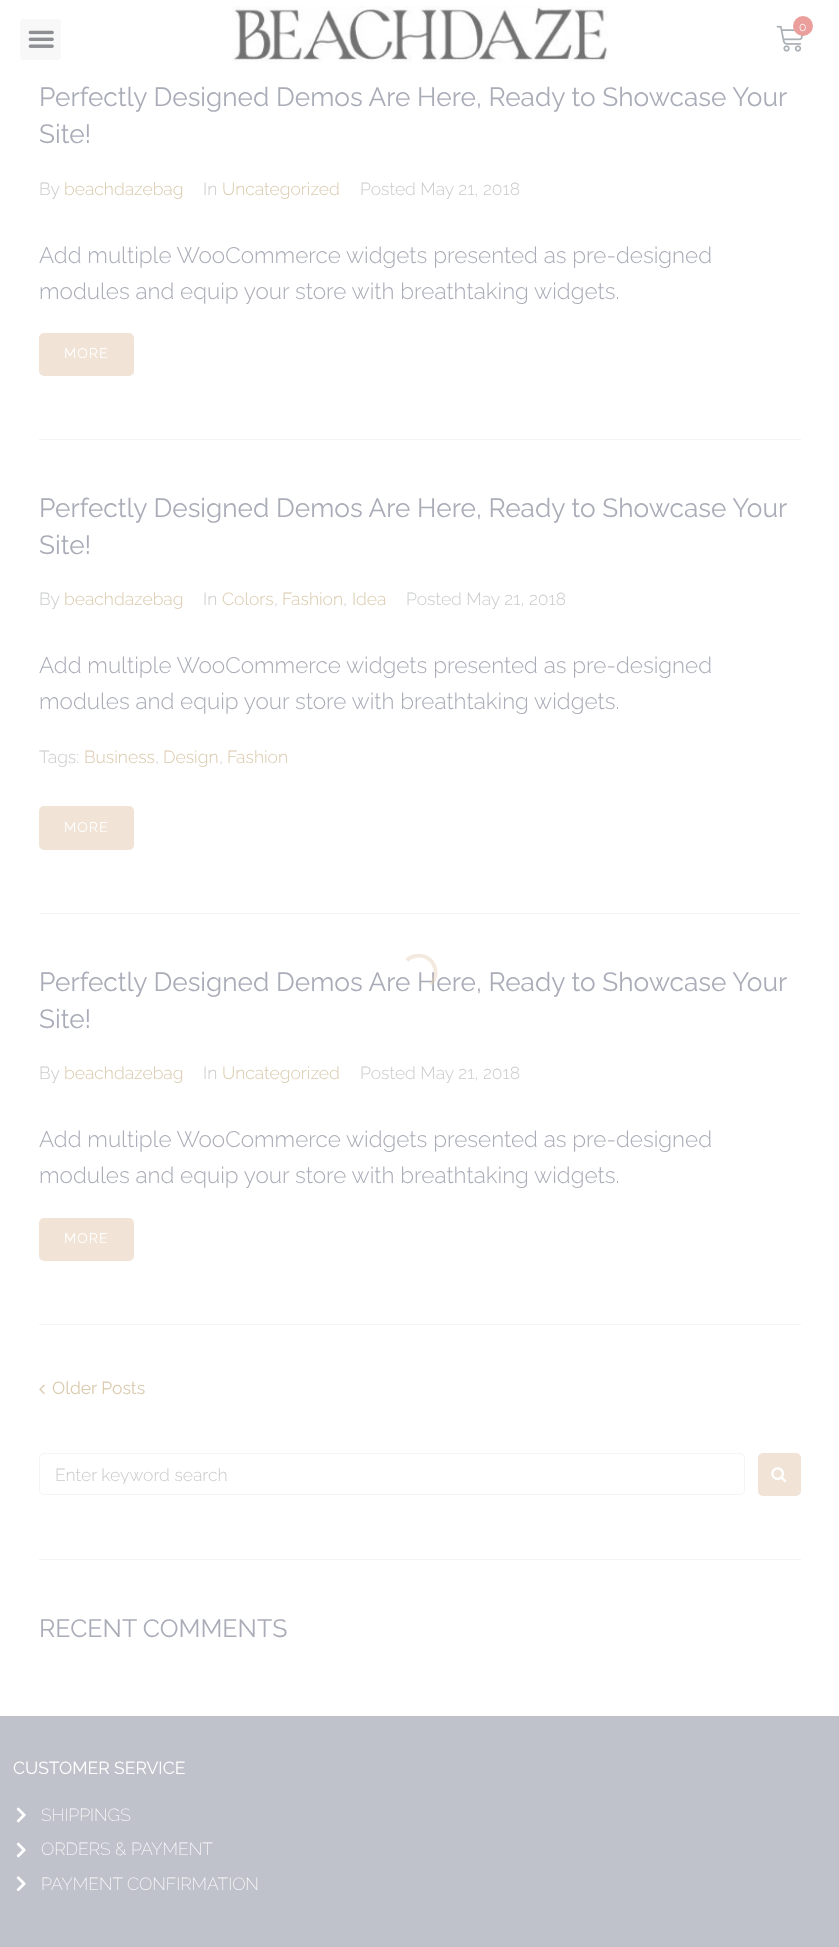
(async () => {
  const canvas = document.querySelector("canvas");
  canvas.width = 839;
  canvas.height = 1947;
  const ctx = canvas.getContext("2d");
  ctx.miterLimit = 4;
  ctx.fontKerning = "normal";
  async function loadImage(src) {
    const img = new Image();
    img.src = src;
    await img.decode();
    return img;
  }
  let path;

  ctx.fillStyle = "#ffffff";
  ctx.fillRect(0, 0, 839, 1947);
  ctx.fillStyle = "#f8f8f8";
  ctx.beginPath();
  ctx.roundRect(20, 19, 41, 41, 4);
  ctx.fill();
  ctx.drawImage(await loadImage("img/1.png"), 28, 30, 26, 18);
  ctx.drawImage(await loadImage("img/2.png"), 232, 6, 376, 57);
  ctx.drawImage(await loadImage("img/3.png"), 776, 25, 27, 27);
  ctx.fillStyle = "#ea9f9c";
  ctx.beginPath();
  ctx.arc(803, 26, 10, 0, Math.PI * 2);
  ctx.fill();
  ctx.fillStyle = "#f1e4d7";
  ctx.beginPath();
  ctx.roundRect(39, 333, 95, 43, 5);
  ctx.fill();
  ctx.fillStyle = "#f4f4f5";
  ctx.fillRect(39, 439, 762, 1);
  ctx.fillStyle = "#f1e4d7";
  ctx.beginPath();
  ctx.roundRect(39, 806, 95, 44, 5);
  ctx.fill();
  ctx.fillStyle = "#f4f4f5";
  ctx.fillRect(39, 913, 762, 1);
  ctx.fillStyle = "#f1e4d7";
  ctx.beginPath();
  ctx.roundRect(39, 1218, 95, 43, 5);
  ctx.fill();
  ctx.fillStyle = "#f4f4f5";
  ctx.fillRect(39, 1324, 762, 1);
  ctx.drawImage(await loadImage("img/4.png"), 39, 1384, 6, 11);
  ctx.beginPath();
  ctx.roundRect(39.5, 1453.5, 705, 41, 4.5);
  ctx.strokeStyle = "#f4f4f5";
  ctx.stroke();
  ctx.fillStyle = "#f1e4d7";
  ctx.beginPath();
  ctx.roundRect(758, 1453, 43, 43, 5);
  ctx.fill();
  ctx.drawImage(await loadImage("img/5.png"), 771, 1467, 16, 16);
  ctx.fillStyle = "#f4f4f5";
  ctx.fillRect(39, 1559, 762, 1);
  ctx.fillStyle = "#c0c2cb";
  ctx.fillRect(0, 1716, 839, 231);
  ctx.drawImage(await loadImage("img/6.png"), 16, 1807, 10, 16);
  ctx.drawImage(await loadImage("img/6.png"), 16, 1842, 10, 16);
  ctx.drawImage(await loadImage("img/7.png"), 16, 1876, 10, 16);
  ctx.font = "300 12px Raleway";
  ctx.fillStyle = "#ffffff";
  ctx.fillText("0", 799, 31);
  ctx.font = "26.25px Raleway";
  ctx.fillStyle = "#aaacb7";
  ctx.fillText("Perfectly Designed Demos Are Here, Ready to Showcase Your", 39, 106);
  ctx.fillText("Site!", 39, 143);
  ctx.font = "300 17.5px Raleway";
  ctx.fillStyle = "#cacbcc";
  ctx.fillText("By", 39, 195);
  ctx.fillStyle = "#dacaad";
  ctx.fillText("beachdazebag", 64, 195);
  ctx.fillStyle = "#cacbcc";
  ctx.fillText("In", 203, 195);
  ctx.fillStyle = "#dacaad";
  ctx.fillText("Uncategorized", 222, 195);
  ctx.fillStyle = "#cacbcc";
  ctx.fillText("Posted May 21, 2018", 360, 195);
  ctx.font = "300 22.5px Raleway";
  ctx.fillStyle = "#aaacb7";
  ctx.fillText("Add multiple WooCommerce widgets presented as pre-designed", 39, 263);
  ctx.fillText("modules and equip your store with breathtaking widgets.", 39, 299);
  ctx.letterSpacing = "1px";
  ctx.font = "14px Raleway";
  ctx.fillStyle = "#ffffff";
  ctx.fillText("MORE", 64, 358);
  ctx.letterSpacing = "0px";
  ctx.font = "26.25px Raleway";
  ctx.fillStyle = "#aaacb7";
  ctx.fillText("Perfectly Designed Demos Are Here, Ready to Showcase Your", 39, 517);
  ctx.fillText("Site!", 39, 554);
  ctx.font = "300 17.5px Raleway";
  ctx.fillStyle = "#cacbcc";
  ctx.fillText("By", 39, 605);
  ctx.fillStyle = "#dacaad";
  ctx.fillText("beachdazebag", 64, 605);
  ctx.fillStyle = "#cacbcc";
  ctx.fillText("In", 203, 605);
  ctx.fillStyle = "#dacaad";
  ctx.fillText("Colors", 222, 605);
  ctx.fillStyle = "#cacbcc";
  ctx.fillText(",", 274, 605);
  ctx.fillStyle = "#dacaad";
  ctx.fillText("Fashion", 282, 605);
  ctx.fillStyle = "#cacbcc";
  ctx.fillText(",", 343, 605);
  ctx.fillStyle = "#dacaad";
  ctx.fillText("Idea", 352, 605);
  ctx.fillStyle = "#cacbcc";
  ctx.fillText("Posted May 21, 2018", 406, 605);
  ctx.font = "300 22.5px Raleway";
  ctx.fillStyle = "#aaacb7";
  ctx.fillText("Add multiple WooCommerce widgets presented as pre-designed", 39, 673);
  ctx.fillText("modules and equip your store with breathtaking widgets.", 39, 709);
  ctx.font = "300 17.5px Raleway";
  ctx.fillStyle = "#cacbcc";
  ctx.fillText("Tags:", 39, 763);
  ctx.fillStyle = "#dacaad";
  ctx.fillText("Business", 84, 763);
  ctx.fillStyle = "#cacbcc";
  ctx.fillText(",", 155, 763);
  ctx.fillStyle = "#dacaad";
  ctx.fillText("Design", 163, 763);
  ctx.fillStyle = "#cacbcc";
  ctx.fillText(",", 219, 763);
  ctx.fillStyle = "#dacaad";
  ctx.fillText("Fashion", 227, 763);
  ctx.letterSpacing = "1px";
  ctx.font = "14px Raleway";
  ctx.fillStyle = "#ffffff";
  ctx.fillText("MORE", 64, 832);
  ctx.letterSpacing = "0px";
  ctx.font = "26.25px Raleway";
  ctx.fillStyle = "#aaacb7";
  ctx.fillText("Perfectly Designed Demos Are Here, Ready to Showcase Your", 39, 991);
  ctx.fillText("Site!", 39, 1028);
  ctx.font = "300 17.5px Raleway";
  ctx.fillStyle = "#cacbcc";
  ctx.fillText("By", 39, 1079);
  ctx.fillStyle = "#dacaad";
  ctx.fillText("beachdazebag", 64, 1079);
  ctx.fillStyle = "#cacbcc";
  ctx.fillText("In", 203, 1079);
  ctx.fillStyle = "#dacaad";
  ctx.fillText("Uncategorized", 222, 1079);
  ctx.fillStyle = "#cacbcc";
  ctx.fillText("Posted May 21, 2018", 360, 1079);
  ctx.font = "300 22.5px Raleway";
  ctx.fillStyle = "#aaacb7";
  ctx.fillText("Add multiple WooCommerce widgets presented as pre-designed", 39, 1147);
  ctx.fillText("modules and equip your store with breathtaking widgets.", 39, 1183);
  ctx.letterSpacing = "1px";
  ctx.font = "14px Raleway";
  ctx.fillStyle = "#ffffff";
  ctx.fillText("MORE", 64, 1243);
  ctx.letterSpacing = "0px";
  ctx.font = "17.5px Raleway";
  ctx.fillStyle = "#dacaad";
  ctx.fillText("Older Posts", 52, 1394);
  ctx.save();
  ctx.beginPath();
  ctx.rect(55, 1464, 669, 20);
  ctx.clip();
  ctx.font = "300 17.5px Raleway";
  ctx.fillStyle = "#cacbcc";
  ctx.fillText("Enter keyword search", 55, 1481);
  ctx.restore();
  ctx.font = "25px Raleway";
  ctx.fillStyle = "#aaacb7";
  ctx.fillText("RECENT COMMENTS", 39, 1637);
  ctx.font = "17.5px Raleway";
  ctx.fillStyle = "#ffffff";
  ctx.fillText("CUSTOMER SERVICE", 13, 1774);
  ctx.font = "200 17.5px Raleway";
  for (const [text, x, y] of [
    ["SHIPPINGS", 41, 1821],
    ["ORDERS & PAYMENT", 41, 1855],
    ["PAYMENT CONFIRMATION", 41, 1890],
  ]) {
    ctx.fillText(text, x, y);
  }
  path = new Path2D("M407 960.5C409 958 412 956.5 415.5 956C431.5 952.5 442.5 972.5 430.5 984.5");
  ctx.strokeStyle = "rgba(230, 206, 183, 0.44)";
  ctx.lineWidth = 3.8;
  ctx.stroke(path);
})();
